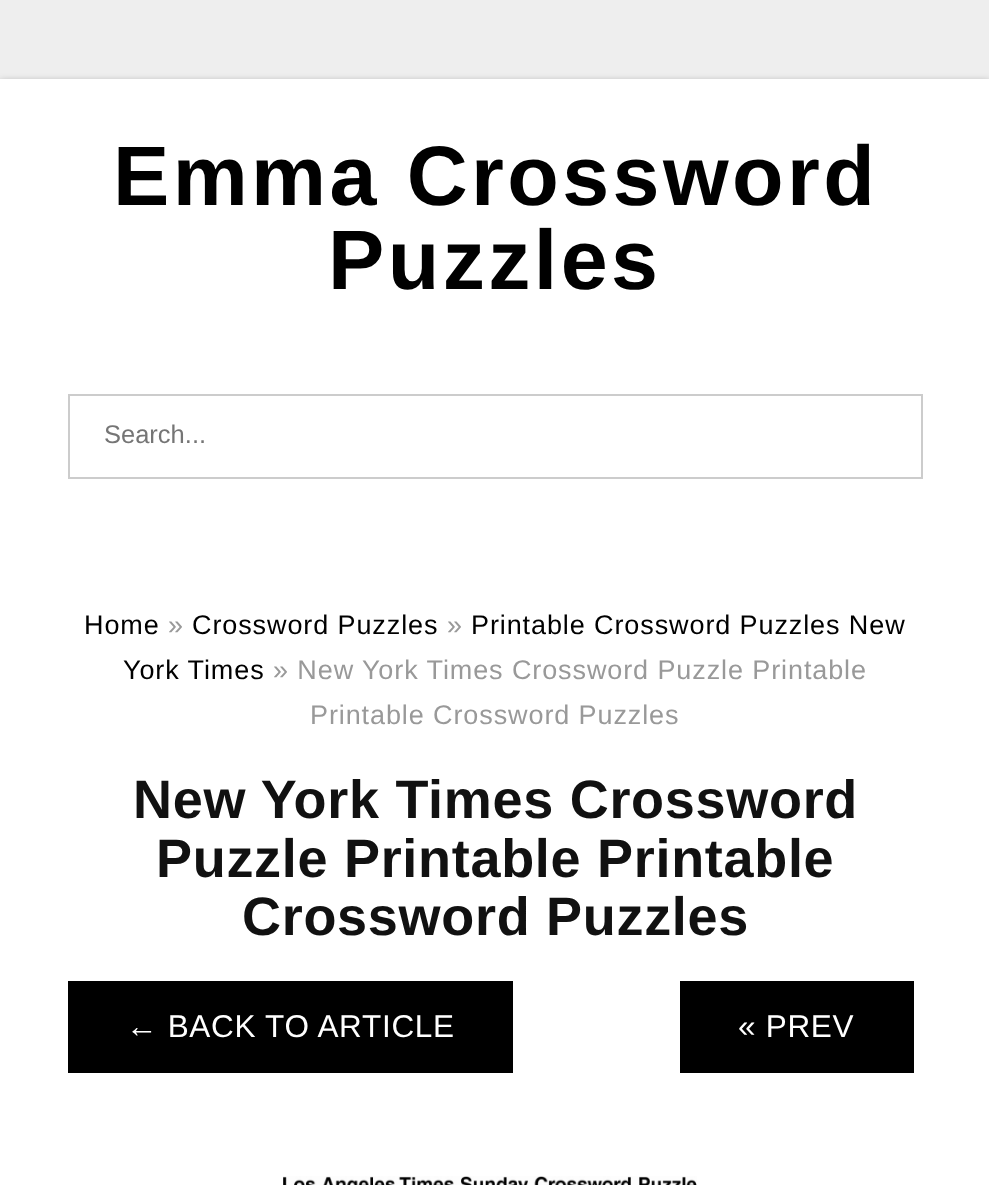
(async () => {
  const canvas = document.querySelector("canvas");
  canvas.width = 989;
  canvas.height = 1185;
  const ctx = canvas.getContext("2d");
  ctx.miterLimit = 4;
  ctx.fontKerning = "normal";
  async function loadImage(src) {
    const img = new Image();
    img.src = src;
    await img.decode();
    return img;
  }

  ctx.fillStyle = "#eeeeee";
  ctx.fillRect(0, 0, 989, 1185);
  ctx.fillStyle = "rgba(0, 0, 0, 0.3)";
  ctx.filter = "blur(3.5px)";
  ctx.beginPath();
  ctx.rect(0, 81, 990, 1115);
  ctx.fill();
  ctx.filter = "none";
  ctx.fillStyle = "#ffffff";
  ctx.fillRect(0, 79, 989, 1106);
  ctx.strokeStyle = "#cccccc";
  ctx.lineWidth = 2;
  ctx.strokeRect(69, 395, 853, 83);
  ctx.fillStyle = "#000000";
  ctx.fillRect(68, 981, 445, 92);
  ctx.fillRect(680, 981, 234, 92);
  ctx.drawImage(await loadImage("img/1.png"), 283, 1176, 414, 9);
  ctx.letterSpacing = "3.4px";
  ctx.font = "bold 84.4px Liberation Sans";
  ctx.fillText("Emma Crossword", 113, 205);
  ctx.fillText("Puzzles", 328, 289);
  ctx.letterSpacing = "0px";
  ctx.font = "25.5px Liberation Sans";
  ctx.fillStyle = "#757575";
  ctx.fillText("Search...", 104, 443);
  ctx.letterSpacing = "0.9px";
  ctx.font = "27px Liberation Sans";
  ctx.fillStyle = "#000000";
  ctx.fillText("Home", 84, 634);
  ctx.fillStyle = "#999999";
  ctx.fillText("»", 168, 634);
  ctx.fillStyle = "#000000";
  ctx.fillText("Crossword Puzzles", 192, 634);
  ctx.fillStyle = "#999999";
  ctx.fillText("»", 447, 634);
  ctx.fillStyle = "#000000";
  ctx.fillText("Printable Crossword Puzzles New", 471, 634);
  ctx.fillText("York Times", 123, 679);
  ctx.fillStyle = "#999999";
  ctx.fillText("» New York Times Crossword Puzzle Printable", 273, 679);
  ctx.fillText("Printable Crossword Puzzles", 310, 724);
  ctx.letterSpacing = "0.7px";
  ctx.font = "bold 54px Liberation Sans";
  ctx.fillStyle = "#111111";
  for (const [text, x, y] of [
    ["New York Times Crossword", 133, 818],
    ["Puzzle Printable Printable", 156, 877],
    ["Crossword Puzzles", 242, 935],
  ]) {
    ctx.fillText(text, x, y);
  }
  ctx.font = "31.5px Liberation Sans";
  ctx.fillStyle = "#ffffff";
  ctx.fillText("← BACK TO ARTICLE", 126, 1037);
  ctx.fillText("« PREV", 738, 1037);
})();
